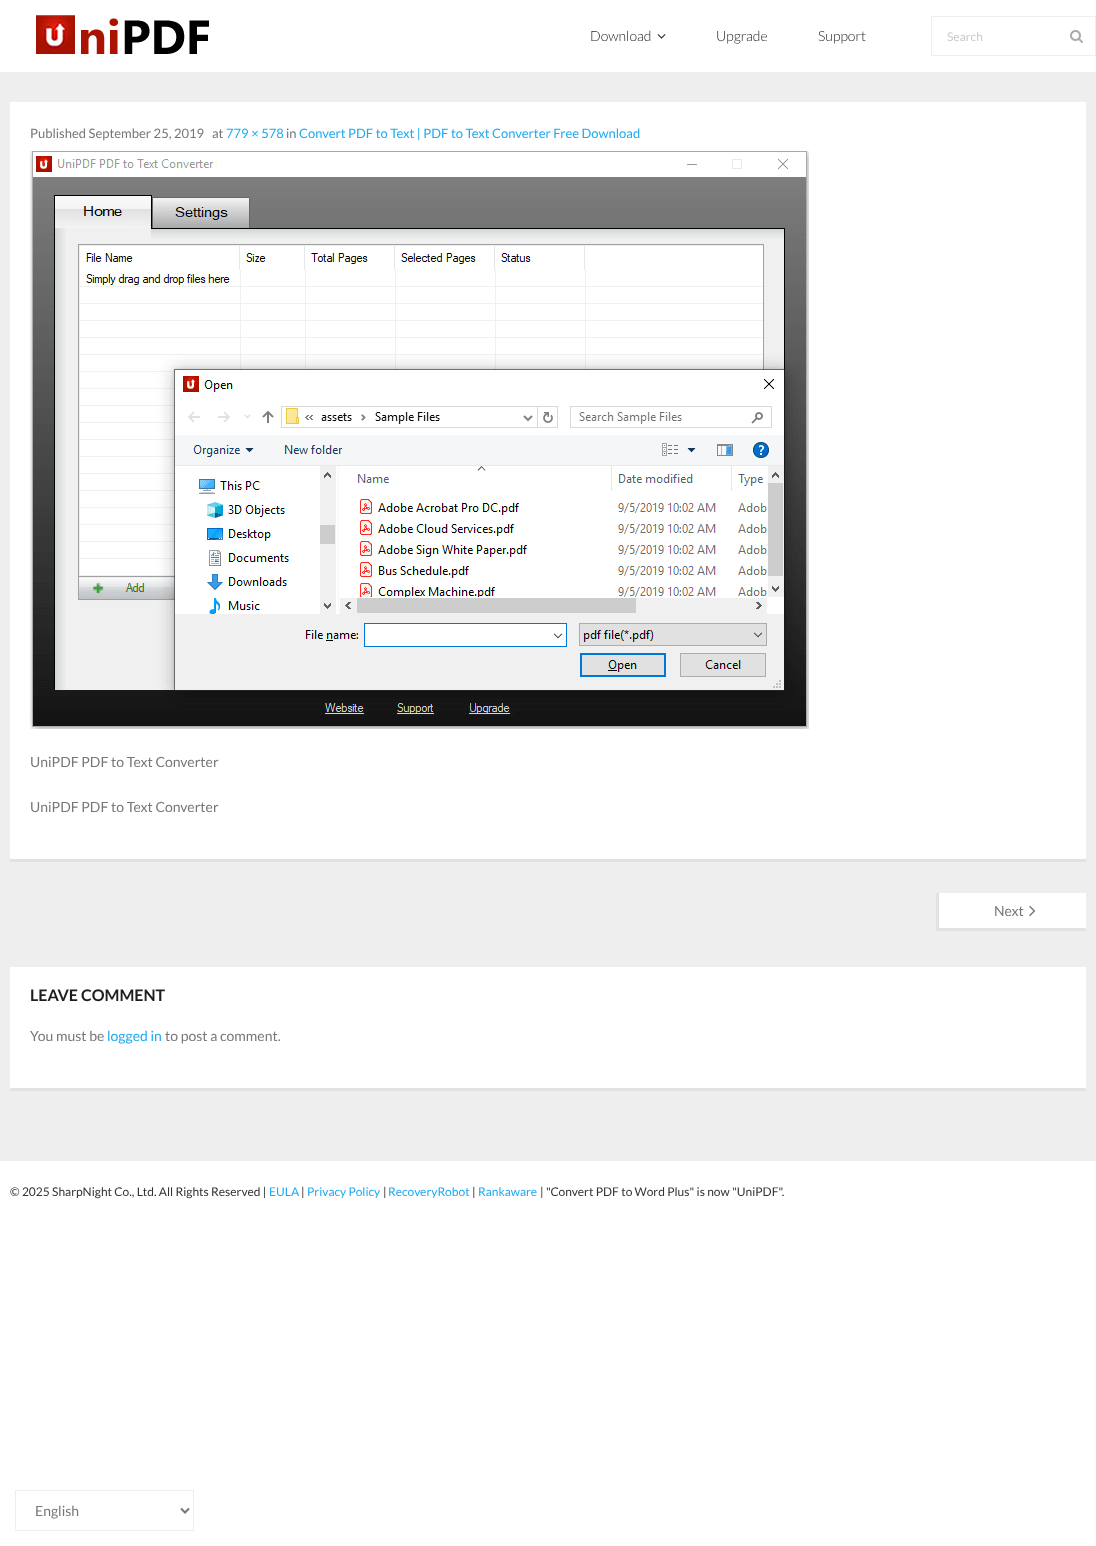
(async () => {
  const canvas = document.querySelector("canvas");
  canvas.width = 1096;
  canvas.height = 1546;
  const ctx = canvas.getContext("2d");
  ctx.miterLimit = 4;
  ctx.fontKerning = "normal";
  async function loadImage(src) {
    const img = new Image();
    img.src = src;
    await img.decode();
    return img;
  }
  let path;

  ctx.fillStyle = "#ffffff";
  ctx.fillRect(0, 0, 1096, 1546);
  ctx.fillStyle = "#eeeeee";
  ctx.fillRect(0, 72, 1096, 1089);
  ctx.drawImage(await loadImage("img/1.png"), 36, 15, 173, 39);
  ctx.drawImage(await loadImage("img/2.png"), 657, 34, 9, 5);
  ctx.strokeStyle = "#eeeeee";
  ctx.strokeRect(931.5, 16.5, 164, 39);
  ctx.drawImage(await loadImage("img/3.png"), 1070, 30, 13, 13);
  ctx.fillStyle = "#ffffff";
  ctx.fillRect(10, 102, 1076, 757);
  ctx.fillStyle = "#e2e2e2";
  ctx.fillRect(10, 859, 1076, 3);
  ctx.drawImage(await loadImage("img/4.png"), 30, 151, 779, 578);
  for (const [x, y, w, h, color] of [
    [939, 893, 147, 35, "#ffffff"],
    [936, 928, 150, 3, "#e2e2e2"],
    [936, 893, 3, 38, "#e2e2e2"],
  ]) {
    ctx.fillStyle = color;
    ctx.fillRect(x, y, w, h);
  }
  ctx.drawImage(await loadImage("img/5.png"), 1029, 905, 7, 12);
  ctx.fillStyle = "#ffffff";
  ctx.fillRect(10, 967, 1076, 121);
  ctx.fillStyle = "#e2e2e2";
  ctx.fillRect(10, 1088, 1076, 3);
  ctx.strokeStyle = "#efeeee";
  ctx.strokeRect(15.5, 1490.5, 178, 40);
  path = new Path2D("M181 1508.5L185 1512.5L189 1508.5");
  ctx.strokeStyle = "#777777";
  ctx.lineWidth = 2;
  ctx.stroke(path);
  ctx.font = "300 14px Lato";
  ctx.fillStyle = "#1e1e1e";
  for (const [text, x, y] of [
    ["Download", 590, 41],
    ["Upgrade", 716, 41],
    ["Support", 818, 41],
  ]) {
    ctx.fillText(text, x, y);
  }
  ctx.font = "12px Lato";
  ctx.fillStyle = "#cacaca";
  ctx.fillText("Search", 947, 41);
  ctx.font = "13px Lato";
  ctx.fillStyle = "#777777";
  ctx.fillText("Published September 25, 2019", 30, 138);
  ctx.fillText("at", 212, 138);
  ctx.fillStyle = "#1eaaf1";
  ctx.fillText("779 × 578", 226, 138);
  ctx.fillStyle = "#777777";
  ctx.fillText("in", 286, 138);
  ctx.fillStyle = "#1eaaf1";
  ctx.fillText("Convert PDF to Text | PDF to Text Converter Free Download", 299, 138);
  ctx.font = "14px Lato";
  ctx.fillStyle = "#777777";
  for (const [text, x, y] of [
    ["UniPDF PDF to Text Converter", 30, 767],
    ["UniPDF PDF to Text Converter", 30, 812],
    ["Next", 994, 916],
  ]) {
    ctx.fillText(text, x, y);
  }
  ctx.font = "bold 16px Lato";
  ctx.fillStyle = "#1e1e1e";
  ctx.fillText("LEAVE COMMENT", 30, 1001);
  ctx.font = "14px Lato";
  ctx.fillStyle = "#777777";
  ctx.fillText("You must be", 30, 1041);
  ctx.fillStyle = "#1eaaf1";
  ctx.fillText("logged in", 107, 1041);
  ctx.fillStyle = "#777777";
  ctx.fillText("to post a comment.", 165, 1041);
  ctx.font = "12px Lato";
  ctx.fillStyle = "#333333";
  ctx.fillText("© 2025 SharpNight Co., Ltd. All Rights Reserved |", 10, 1196);
  ctx.fillStyle = "#1eaaf1";
  ctx.fillText("EULA", 269, 1196);
  ctx.fillStyle = "#333333";
  ctx.fillText("|", 301, 1196);
  ctx.fillStyle = "#1eaaf1";
  ctx.fillText("Privacy Policy", 307, 1196);
  ctx.fillStyle = "#333333";
  ctx.fillText("|", 383, 1196);
  ctx.fillStyle = "#1eaaf1";
  ctx.fillText("RecoveryRobot", 388, 1196);
  ctx.fillStyle = "#333333";
  ctx.fillText("|", 472, 1196);
  ctx.fillStyle = "#1eaaf1";
  ctx.fillText("Rankaware", 478, 1196);
  ctx.fillStyle = "#333333";
  ctx.fillText("| \"Convert PDF to Word Plus\" is now \"UniPDF\".", 540, 1196);
  ctx.font = "14px Lato";
  ctx.fillStyle = "#777777";
  ctx.fillText("English", 35, 1516);
})();
